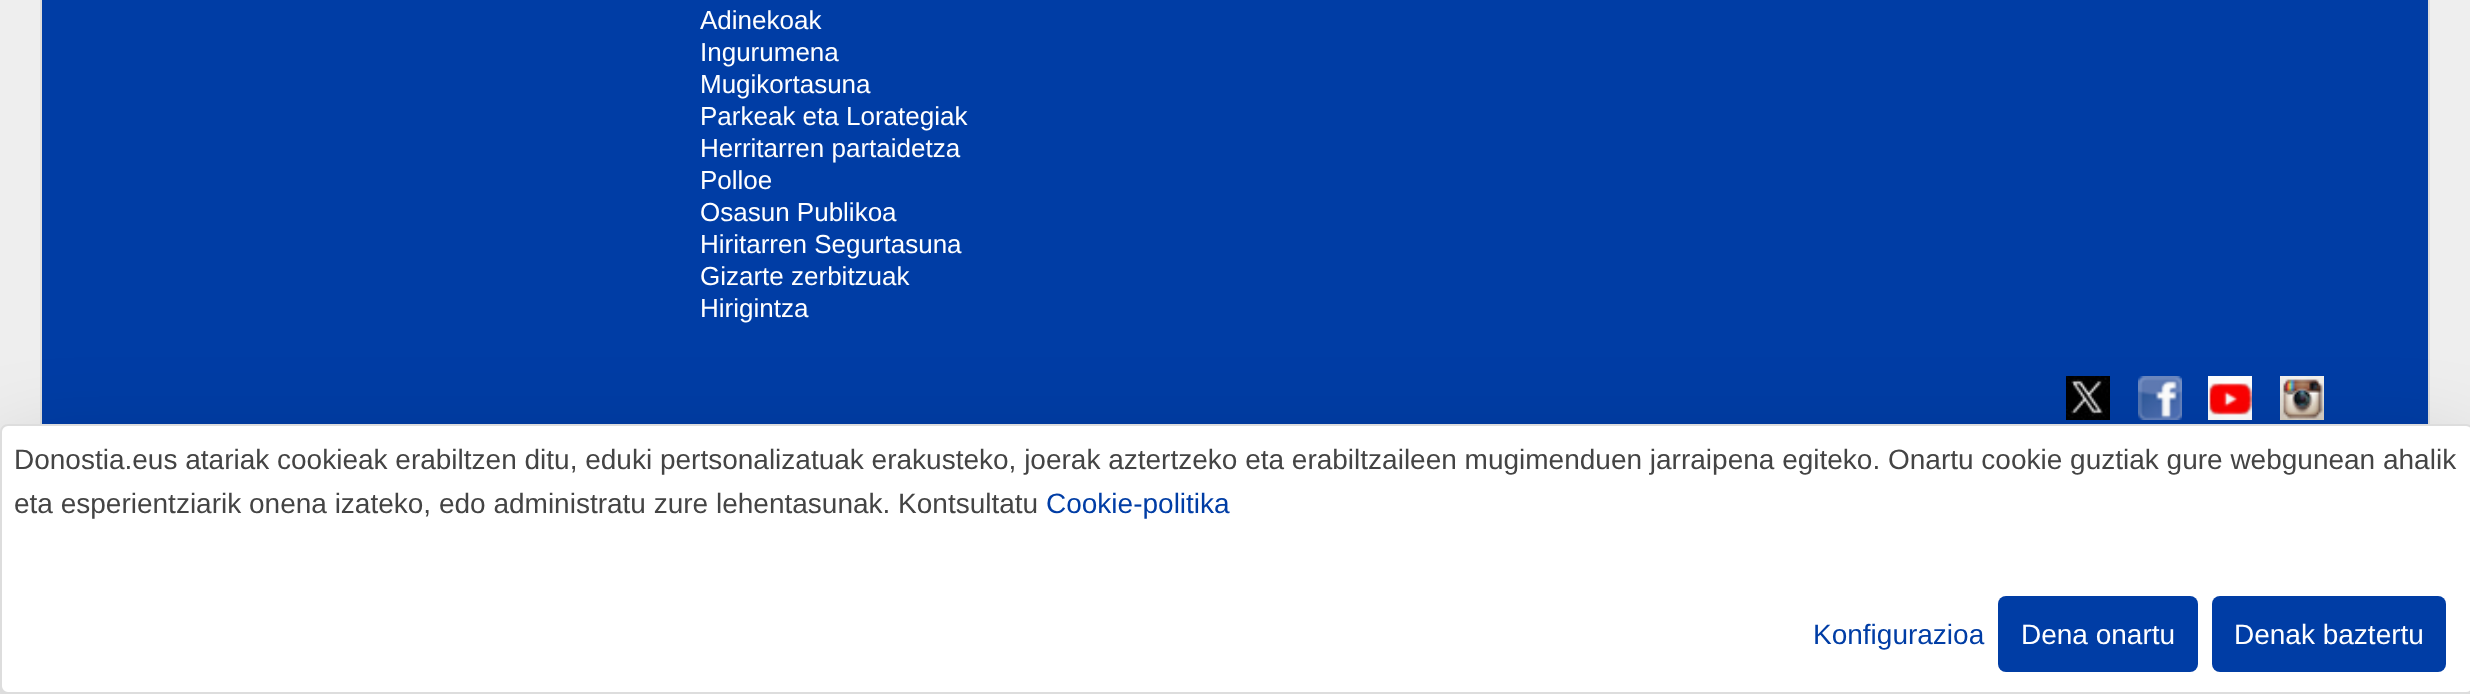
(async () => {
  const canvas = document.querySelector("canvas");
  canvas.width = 2470;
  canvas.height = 694;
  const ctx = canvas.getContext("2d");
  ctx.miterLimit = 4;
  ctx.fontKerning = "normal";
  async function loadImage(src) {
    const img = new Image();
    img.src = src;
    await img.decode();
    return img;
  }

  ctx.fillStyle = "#eeeeee";
  ctx.fillRect(0, 0, 2470, 694);
  ctx.strokeStyle = "#dddddd";
  ctx.lineWidth = 2;
  ctx.strokeRect(41, -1, 2388, 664);
  ctx.fillStyle = "#003da5";
  ctx.fillRect(42, 0, 2386, 424);
  ctx.drawImage(await loadImage("img/1.png"), 2066, 376, 44, 44);
  ctx.drawImage(await loadImage("img/2.png"), 2138, 376, 44, 44);
  ctx.drawImage(await loadImage("img/3.png"), 2208, 376, 44, 44);
  ctx.drawImage(await loadImage("img/4.png"), 2280, 376, 44, 44);
  ctx.fillStyle = "rgba(0, 0, 0, 0.18)";
  ctx.filter = "blur(48px)";
  ctx.beginPath();
  ctx.roundRect(0, 456, 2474, 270, 8);
  ctx.fill();
  ctx.filter = "none";
  ctx.fillStyle = "#ffffff";
  ctx.beginPath();
  ctx.roundRect(1, 425, 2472, 268, 7);
  ctx.fill();
  ctx.stroke();
  ctx.fillStyle = "#003da5";
  ctx.beginPath();
  ctx.roundRect(1998, 596, 200, 76, 8);
  ctx.fill();
  ctx.beginPath();
  ctx.roundRect(2212, 596, 234, 76, 8);
  ctx.fill();
  ctx.font = "26px Liberation Sans";
  ctx.fillStyle = "#ffffff";
  for (const [text, x, y] of [
    ["Adinekoak", 700, 29],
    ["Ingurumena", 700, 61],
    ["Mugikortasuna", 700, 93],
    ["Parkeak eta Lorategiak", 700, 125],
    ["Herritarren partaidetza", 700, 157],
    ["Polloe", 700, 189],
    ["Osasun Publikoa", 700, 221],
    ["Hiritarren Segurtasuna", 700, 253],
    ["Gizarte zerbitzuak", 700, 285],
    ["Hirigintza", 700, 317],
  ]) {
    ctx.fillText(text, x, y);
  }
  ctx.font = "28px Liberation Sans";
  ctx.fillStyle = "#444444";
  ctx.fillText("Donostia.eus atariak cookieak erabiltzen ditu, eduki pertsonalizatuak erakusteko, joerak aztertzeko eta erabiltzaileen mugimenduen jarraipena egiteko. Onartu cookie guztiak gure webgunean ahalik", 14, 469);
  ctx.fillText("eta esperientziarik onena izateko, edo administratu zure lehentasunak. Kontsultatu", 14, 513);
  ctx.fillStyle = "#003da5";
  ctx.fillText("Cookie-politika", 1046, 513);
  ctx.fillText("Konfigurazioa", 1813, 644);
  ctx.fillStyle = "#ffffff";
  ctx.fillText("Dena onartu", 2021, 644);
  ctx.fillText("Denak baztertu", 2234, 644);
})();
